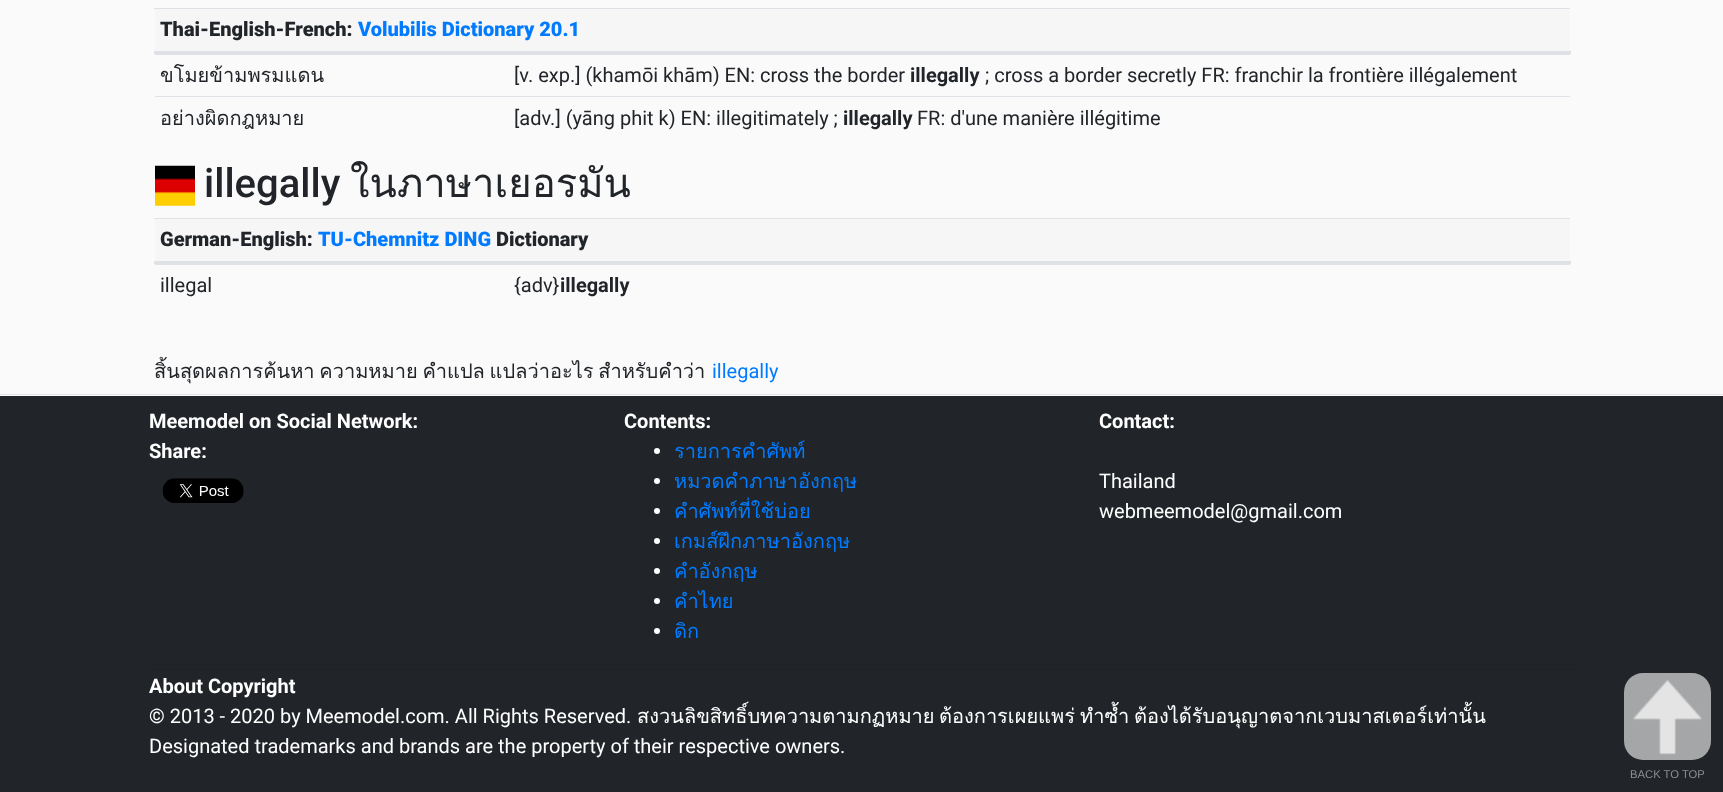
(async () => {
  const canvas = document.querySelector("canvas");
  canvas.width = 1723;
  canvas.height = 792;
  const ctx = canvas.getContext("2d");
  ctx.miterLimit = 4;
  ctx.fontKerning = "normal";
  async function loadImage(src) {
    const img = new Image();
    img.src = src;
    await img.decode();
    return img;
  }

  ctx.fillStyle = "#fafafa";
  ctx.fillRect(0, 0, 1723, 792);
  for (const [x, y, w, h, color] of [
    [155, 9, 1415, 42, "#f6f6f6"],
    [154, 8, 1416, 1, "#dee2e6"],
    [154, 51, 1417, 3, "#dee2e6"],
    [155, 54, 1415, 1, "#dee2e6"],
    [155, 96, 1415, 1, "#dee2e6"],
  ]) {
    ctx.fillStyle = color;
    ctx.fillRect(x, y, w, h);
  }
  ctx.drawImage(await loadImage("img/1.png"), 155, 165, 40, 41);
  for (const [x, y, w, h, color] of [
    [155, 219, 1415, 42, "#f6f6f6"],
    [154, 218, 1416, 1, "#dee2e6"],
    [154, 261, 1417, 3, "#dee2e6"],
    [155, 264, 1415, 1, "#dee2e6"],
    [0, 394, 1723, 1, "#e1e1e1"],
    [0, 396, 1723, 396, "#212529"],
  ]) {
    ctx.fillStyle = color;
    ctx.fillRect(x, y, w, h);
  }
  ctx.drawImage(await loadImage("img/2.png"), 162, 478, 82, 25);
  ctx.fillStyle = "#ffffff";
  ctx.beginPath();
  ctx.arc(657, 451, 3, 0, Math.PI * 2);
  ctx.fill();
  ctx.beginPath();
  ctx.arc(657, 481, 3, 0, Math.PI * 2);
  ctx.fill();
  ctx.beginPath();
  ctx.arc(657, 511, 3, 0, Math.PI * 2);
  ctx.fill();
  ctx.beginPath();
  ctx.arc(657, 541, 3, 0, Math.PI * 2);
  ctx.fill();
  ctx.beginPath();
  ctx.arc(657, 571, 3, 0, Math.PI * 2);
  ctx.fill();
  ctx.beginPath();
  ctx.arc(657, 601, 3, 0, Math.PI * 2);
  ctx.fill();
  ctx.beginPath();
  ctx.arc(657, 631, 3, 0, Math.PI * 2);
  ctx.fill();
  ctx.fillStyle = "#1e2125";
  ctx.fillRect(150, 669, 1425, 1);
  ctx.fillStyle = "#a5a6a7";
  ctx.beginPath();
  ctx.roundRect(1624, 673, 87, 87, 19);
  ctx.fill();
  ctx.drawImage(await loadImage("img/3.png"), 1633, 679, 69, 76);
  ctx.font = "900 20px Roboto";
  ctx.fillStyle = "#212529";
  ctx.fillText("Thai-English-French:", 160, 36);
  ctx.fillStyle = "#007bff";
  ctx.fillText("Volubilis Dictionary 20.1", 358, 36);
  ctx.font = "20px Loma";
  ctx.fillStyle = "#212529";
  ctx.fillText("ขโมยข้ามพรมแดน", 160, 82);
  ctx.font = "20px Roboto";
  ctx.fillText("[v. exp.] (khamōi khām) EN: cross the border", 514, 82);
  ctx.font = "bold 20px Roboto";
  ctx.fillText("illegally", 910, 82);
  ctx.font = "20px Roboto";
  ctx.fillText("; cross a border secretly FR: franchir la frontière illégalement", 985, 82);
  ctx.font = "20px Loma";
  ctx.fillText("อย่างผิดกฎหมาย", 160, 125);
  ctx.font = "20px Roboto";
  ctx.fillText("[adv.] (yāng phit k) EN: illegitimately ;", 514, 125);
  ctx.font = "bold 20px Roboto";
  ctx.fillText("illegally", 843, 125);
  ctx.font = "20px Roboto";
  ctx.fillText("FR: d'une manière illégitime", 917, 125);
  ctx.font = "500 40px Roboto";
  ctx.fillText("illegally", 204, 197);
  ctx.font = "40px Loma";
  ctx.fillText("ในภาษาเยอรมัน", 350, 197);
  ctx.font = "900 20px Roboto";
  ctx.fillText("German-English:", 160, 246);
  ctx.fillStyle = "#007bff";
  ctx.fillText("TU-Chemnitz DING", 318, 246);
  ctx.fillStyle = "#212529";
  ctx.fillText("Dictionary", 496, 246);
  ctx.font = "20px Roboto";
  ctx.fillText("illegal", 160, 292);
  ctx.fillText("{adv}", 514, 292);
  ctx.font = "bold 20px Roboto";
  ctx.fillText("illegally", 560, 292);
  ctx.wordSpacing = "-2px";
  ctx.font = "20px Loma";
  ctx.fillText("สิ้นสุดผลการค้นหา ความหมาย คำแปล แปลว่าอะไร สำหรับคำว่า", 154, 378);
  ctx.wordSpacing = "0px";
  ctx.font = "20px Roboto";
  ctx.fillStyle = "#007bff";
  ctx.fillText("illegally", 712, 378);
  ctx.font = "bold 20px Roboto";
  ctx.fillStyle = "#ffffff";
  for (const [text, x, y] of [
    ["Meemodel on Social Network:", 149, 428],
    ["Share:", 149, 458],
    ["Contents:", 624, 428],
  ]) {
    ctx.fillText(text, x, y);
  }
  ctx.font = "20px Loma";
  ctx.fillStyle = "#007bff";
  for (const [text, x, y] of [
    ["รายการคำศัพท์", 674, 458],
    ["หมวดคำภาษาอังกฤษ", 674, 488],
    ["คำศัพท์ที่ใช้บ่อย", 674, 518],
    ["เกมส์ฝึกภาษาอังกฤษ", 674, 548],
    ["คำอังกฤษ", 674, 578],
    ["คำไทย", 674, 608],
    ["ดิก", 674, 638],
  ]) {
    ctx.fillText(text, x, y);
  }
  ctx.font = "bold 20px Roboto";
  ctx.fillStyle = "#ffffff";
  ctx.fillText("Contact:", 1099, 428);
  ctx.font = "20px Roboto";
  ctx.fillText("Thailand", 1099, 488);
  ctx.fillText("webmeemodel@gmail.com", 1099, 518);
  ctx.font = "bold 20px Roboto";
  ctx.fillText("About Copyright", 149, 693);
  ctx.font = "20px Roboto";
  ctx.fillText("© 2013 - 2020 by Meemodel.com. All Rights Reserved.", 149, 723);
  ctx.font = "20px Loma";
  for (const [text, x, y] of [
    ["สงวนลิขสิทธิ์บทความตามกฏหมาย", 637, 723],
    ["ต้องการเผยแพร่", 939, 723],
    ["ทำซ้ำ", 1080, 723],
    ["ต้องได้รับอนุญาตจากเวบมาสเตอร์เท่านั้น", 1134, 723],
  ]) {
    ctx.fillText(text, x, y);
  }
  ctx.font = "20px Roboto";
  ctx.fillText("Designated trademarks and brands are the property of their respective owners.", 149, 753);
  ctx.font = "11.25px Liberation Sans";
  ctx.fillStyle = "#8d8e8f";
  ctx.fillText("BACK TO TOP", 1630, 778);
})();
